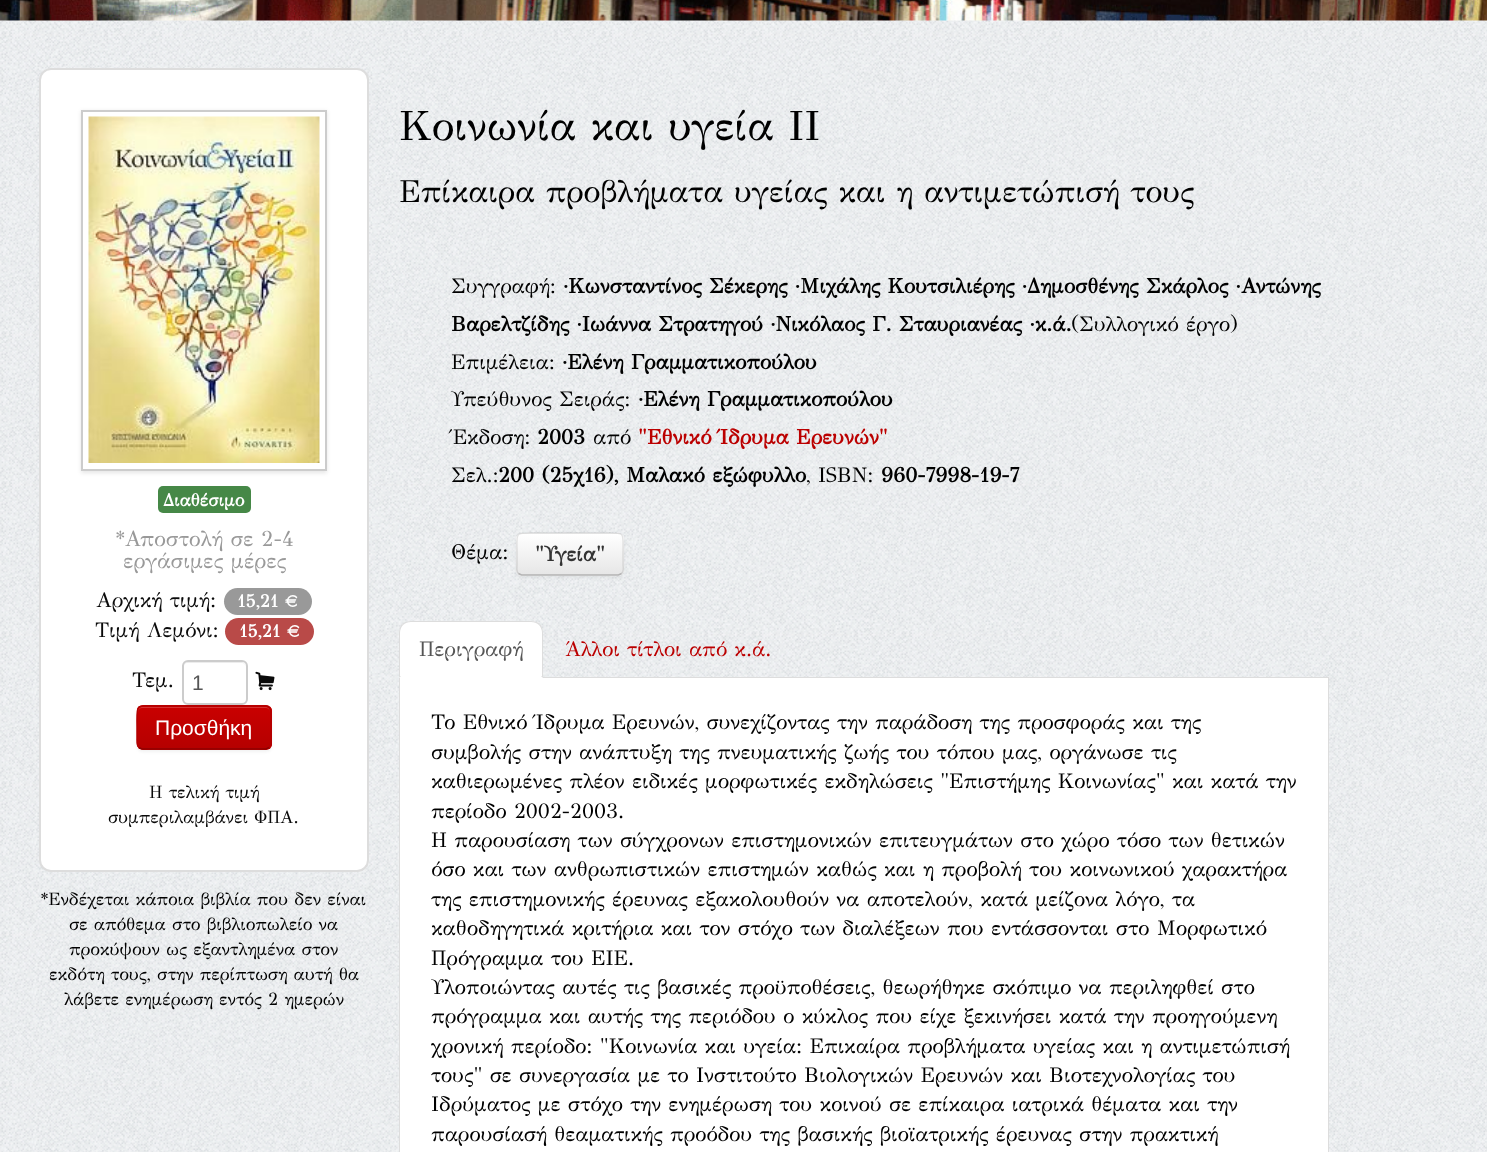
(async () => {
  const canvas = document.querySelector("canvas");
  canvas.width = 1487;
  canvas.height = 1152;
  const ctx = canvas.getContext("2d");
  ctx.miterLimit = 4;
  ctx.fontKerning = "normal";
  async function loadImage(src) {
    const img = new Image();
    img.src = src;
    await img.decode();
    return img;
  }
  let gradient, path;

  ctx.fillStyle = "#ffffff";
  ctx.fillRect(0, 0, 1487, 1152);
  ctx.drawImage(await loadImage("img/1.png"), 0, 20, 1487, 1132);
  ctx.drawImage(await loadImage("img/2.png"), 0, 0, 1487, 21);
  ctx.beginPath();
  ctx.roundRect(40, 69, 328, 802, 11);
  ctx.fill();
  ctx.strokeStyle = "#dddddd";
  ctx.lineWidth = 2;
  ctx.stroke();
  ctx.save();
  path = new Path2D("M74 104H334V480H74ZM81 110H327V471H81Z");
  ctx.clip(path, "evenodd");
  ctx.fillStyle = "rgba(0, 0, 0, 0.1)";
  ctx.filter = "blur(2px)";
  ctx.beginPath();
  ctx.rect(81, 111, 246, 362);
  ctx.fill();
  ctx.filter = "none";
  ctx.restore();
  ctx.strokeStyle = "#cccccc";
  ctx.strokeRect(82, 111, 244, 359);
  ctx.drawImage(await loadImage("img/3.png"), 88, 116, 232, 347);
  ctx.fillStyle = "#468847";
  ctx.beginPath();
  ctx.roundRect(158, 486, 93, 27, 5);
  ctx.fill();
  ctx.fillStyle = "#999999";
  ctx.beginPath();
  ctx.roundRect(224, 588, 88, 27, 13.5);
  ctx.fill();
  ctx.fillStyle = "#b94a48";
  ctx.beginPath();
  ctx.roundRect(225, 618, 89, 27, 13.5);
  ctx.fill();
  ctx.fillStyle = "#ececec";
  path = new Path2D("M188 663H242C244 663 246 665 246 668C246 660 238 662 232 662H197C191 662 183 660 183 668C183 665 185 663 188 663Z");
  ctx.fill(path);
  ctx.beginPath();
  ctx.roundRect(183, 661, 64, 43, 5);
  ctx.stroke();
  ctx.drawImage(await loadImage("img/4.png"), 255, 671, 20, 20);
  ctx.fillStyle = "rgba(0, 0, 0, 0.05)";
  ctx.filter = "blur(1.5px)";
  ctx.beginPath();
  ctx.roundRect(137, 707, 135, 45, 6);
  ctx.fill();
  ctx.filter = "none";
  ctx.fillStyle = "#c90000";
  ctx.beginPath();
  ctx.roundRect(137, 705, 135, 45, 6);
  ctx.fill();
  ctx.save();
  ctx.beginPath();
  ctx.roundRect(137, 705, 135, 45, 6);
  ctx.clip();
  gradient = ctx.createLinearGradient(204, 707, 204, 749);
  gradient.addColorStop(0, "#c90000");
  gradient.addColorStop(1, "#b50000");
  ctx.fillStyle = gradient;
  ctx.fillRect(137, 707, 135, 42);
  ctx.restore();
  ctx.fillStyle = "#d43333";
  path = new Path2D("M142 708H266C268 708 270 710 270 712C270 709 268 707 265 707H143C140 707 138 709 138 712C138 710 140 708 142 708Z");
  ctx.fill(path);
  path = new Path2D("M269 747.5L266 749H142L139 747.5");
  ctx.strokeStyle = "#8d0000";
  ctx.lineWidth = 1.5;
  ctx.stroke(path);
  path = new Path2D("M139 747.5C136.5 745.5 137 741.5 137 738.5V727.5C137 701 134 706 163 706H265.5C271.5 706 271 712.5 271 716.5V733C271 736.5 272.5 744.5 269 747.5");
  ctx.strokeStyle = "#b30000";
  ctx.stroke(path);
  ctx.fillStyle = "rgba(0, 0, 0, 0.05)";
  ctx.filter = "blur(1.5px)";
  ctx.beginPath();
  ctx.roundRect(516, 534, 108, 44, 6);
  ctx.fill();
  ctx.filter = "none";
  ctx.fillStyle = "#f5f5f5";
  ctx.beginPath();
  ctx.roundRect(516, 533, 108, 43, 6);
  ctx.fill();
  ctx.save();
  ctx.beginPath();
  ctx.roundRect(516, 533, 108, 43, 6);
  ctx.clip();
  gradient = ctx.createLinearGradient(570, 534, 570, 575);
  gradient.addColorStop(0, "#ffffff");
  gradient.addColorStop(1, "#e6e6e6");
  ctx.fillStyle = gradient;
  ctx.fillRect(516, 534, 108, 41);
  ctx.restore();
  ctx.fillStyle = "rgba(255, 255, 255, 0.2)";
  path = new Path2D("M522 536H618C624 536 622 548 622 551V573C623 572 623 571 623 570V539C623 536 621 534 618 534H523C520 534 518 536 518 539V540C518 538 520 536 522 536Z");
  ctx.fill(path);
  path = new Path2D("M621.5 573.5L618.5 575H521.5L518.5 573.5");
  ctx.strokeStyle = "#b3b3b3";
  ctx.stroke(path);
  path = new Path2D("M518.5 573.5C516 571.5 517 567.5 517 565V554C517 530.5 513.5 533 538 533H602C626.5 533 623 530.5 623 554V565C623 567.5 624 571.5 621.5 573.5");
  ctx.strokeStyle = "rgba(0, 0, 0, 0.1)";
  ctx.stroke(path);
  ctx.fillStyle = "#dddddd";
  ctx.fillRect(543, 677, 786, 1);
  ctx.fillStyle = "#ffffff";
  ctx.beginPath();
  ctx.roundRect(399, 621, 144, 57, [12, 12, 0, 0]);
  ctx.fill();
  ctx.fillStyle = "#dddddd";
  path = new Path2D("M411 621C408 621 404 622 402 624L403 625C405 623 408 622 411 622H531C534 622 537 623 539 625L540 624C538 622 534 621 531 621Z");
  ctx.fill(path);
  path = new Path2D("M543 678V633C543 630 542 626 540 624L539 625C541 627 542 630 542 633V676H541Z");
  ctx.fill(path);
  path = new Path2D("M399 678L401 676H400V633C400 630 401 627 403 625L402 624C400 626 399 630 399 633Z");
  ctx.fill(path);
  ctx.fillStyle = "#ffffff";
  ctx.fillRect(400, 678, 928, 474);
  ctx.fillStyle = "#dddddd";
  path = new Path2D("M399 678H1329V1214C1329 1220 1324 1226 1317 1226H411C404 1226 399 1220 399 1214ZM400 678H1328V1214C1328 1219 1323 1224 1317 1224H411C405 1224 400 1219 400 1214Z");
  ctx.fill(path, "evenodd");
  ctx.font = "bold 17.75px GFS Didot";
  ctx.fillStyle = "#ffffff";
  ctx.fillText("Διαθέσιμο", 163, 506);
  ctx.font = "21.75px GFS Didot";
  ctx.fillStyle = "#999999";
  ctx.fillText("*Αποστολή σε 2-4", 116, 546);
  ctx.fillText("εργάσιμες μέρες", 123, 568);
  ctx.font = "21px GFS Didot";
  ctx.fillStyle = "#0a0a0a";
  ctx.fillText("Αρχική τιμή:", 96, 607);
  ctx.font = "bold 17.75px GFS Didot";
  ctx.fillStyle = "#ffffff";
  ctx.fillText("15,21 €", 237, 607);
  ctx.font = "21px GFS Didot";
  ctx.fillStyle = "#0a0a0a";
  ctx.fillText("Τιμή Λεμόνι:", 95, 637);
  ctx.font = "bold 17.75px GFS Didot";
  ctx.fillStyle = "#ffffff";
  ctx.fillText("15,21 €", 239, 637);
  ctx.font = "21px GFS Didot";
  ctx.fillStyle = "#0a0a0a";
  ctx.fillText("Τεμ.", 132, 687);
  ctx.font = "21px Liberation Sans";
  ctx.fillStyle = "#555555";
  ctx.fillText("1", 192, 690);
  ctx.fillStyle = "#ffffff";
  ctx.fillText("Προσθήκη", 155, 735);
  ctx.font = "17.8px GFS Didot";
  ctx.fillStyle = "#0a0a0a";
  ctx.fillText("H τελική τιμή", 149, 798);
  ctx.fillText("συμπεριλαμβάνει ΦΠΑ.", 108, 823);
  ctx.fillStyle = "#000000";
  for (const [text, x, y] of [
    ["*Ενδέχεται κάποια βιβλία που δεν είναι", 41, 905],
    ["σε απόθεμα στο βιβλιοπωλείο να", 69, 930],
    ["προκύψουν ως εξαντλημένα στον", 69, 955],
    ["εκδότη τους, στην περίπτωση αυτή θα", 49, 980],
    ["λάβετε ενημέρωση εντός 2 ημερών", 64, 1005],
  ]) {
    ctx.fillText(text, x, y);
  }
  ctx.font = "42px GFS Didot";
  ctx.fillText("Κοινωνία και υγεία ΙΙ", 399, 140);
  ctx.font = "31.5px GFS Didot";
  ctx.fillText("Επίκαιρα προβλήματα υγείας και η αντιμετώπισή τους", 399, 202);
  ctx.font = "21px GFS Didot";
  ctx.fillText("Συγγραφή:", 451, 293);
  ctx.font = "bold 21px GFS Didot";
  ctx.fillText("·Κωνσταντίνος Σέκερης ·Μιχάλης Κουτσιλιέρης ·Δημοσθένης Σκάρλος ·Αντώνης", 563, 293);
  ctx.fillText("Βαρελτζίδης ·Ιωάννα Στρατηγού ·Νικόλαος Γ. Σταυριανέας ·κ.ά.", 451, 331);
  ctx.font = "21px GFS Didot";
  ctx.fillText("(Συλλογικό έργο)", 1071, 331);
  ctx.fillText("Επιμέλεια:", 451, 369);
  ctx.font = "bold 21px GFS Didot";
  ctx.fillText("·Ελένη Γραμματικοπούλου", 562, 369);
  ctx.font = "21px GFS Didot";
  ctx.fillText("Υπεύθυνος Σειράς:", 451, 406);
  ctx.font = "bold 21px GFS Didot";
  ctx.fillText("·Ελένη Γραμματικοπούλου", 638, 406);
  ctx.font = "21px GFS Didot";
  ctx.fillText("Έκδοση:", 451, 444);
  ctx.font = "bold 21px GFS Didot";
  ctx.fillText("2003", 537, 444);
  ctx.font = "21px GFS Didot";
  ctx.fillText("από", 593, 444);
  ctx.font = "bold 21px GFS Didot";
  ctx.fillStyle = "#bb0000";
  ctx.fillText("\"Εθνικό Ίδρυμα Ερευνών\"", 638, 444);
  ctx.font = "21px GFS Didot";
  ctx.fillStyle = "#000000";
  ctx.fillText("Σελ.:", 451, 482);
  ctx.font = "bold 21px GFS Didot";
  ctx.fillText("200 (25χ16), Μαλακό εξώφυλλο", 498, 482);
  ctx.font = "21px GFS Didot";
  ctx.fillText(", ISBN:", 806, 482);
  ctx.font = "bold 21px GFS Didot";
  ctx.fillText("960-7998-19-7", 881, 482);
  ctx.font = "21px GFS Didot";
  ctx.fillText("Θέμα:", 451, 559);
  ctx.font = "bold 21px GFS Didot";
  ctx.fillStyle = "#333333";
  ctx.fillText("\"Υγεία\"", 535, 561);
  ctx.font = "21px GFS Didot";
  ctx.fillStyle = "#555555";
  ctx.fillText("Περιγραφή", 419, 656);
  ctx.fillStyle = "#bb0000";
  ctx.fillText("Άλλοι τίτλοι από κ.ά.", 565, 656);
  ctx.fillStyle = "#000000";
  for (const [text, x, y] of [
    ["Το Εθνικό Ίδρυμα Ερευνών, συνεχίζοντας την παράδοση της προσφοράς και της", 431, 729],
    ["συμβολής στην ανάπτυξη της πνευματικής ζωής του τόπου μας, οργάνωσε τις", 431, 759],
    ["καθιερωμένες πλέον ειδικές μορφωτικές εκδηλώσεις \"Επιστήμης Κοινωνίας\" και κατά την", 431, 788],
    ["περίοδο 2002-2003.", 431, 818],
    ["Η παρουσίαση των σύγχρονων επιστημονικών επιτευγμάτων στο χώρο τόσο των θετικών", 431, 847],
    ["όσο και των ανθρωπιστικών επιστημών καθώς και η προβολή του κοινωνικού χαρακτήρα", 431, 876],
    ["της επιστημονικής έρευνας εξακολουθούν να αποτελούν, κατά μείζονα λόγο, τα", 431, 906],
    ["καθοδηγητικά κριτήρια και τον στόχο των διαλέξεων που εντάσσονται στο Μορφωτικό", 431, 935],
    ["Πρόγραμμα του ΕΙΕ.", 431, 965],
    ["Υλοποιώντας αυτές τις βασικές προϋποθέσεις, θεωρήθηκε σκόπιμο να περιληφθεί στο", 431, 994],
    ["πρόγραμμα και αυτής της περιόδου ο κύκλος που είχε ξεκινήσει κατά την προηγούμενη", 431, 1023],
    ["χρονική περίοδο: \"Κοινωνία και υγεία: Επικαίρα προβλήματα υγείας και η αντιμετώπισή", 431, 1053],
    ["τους\" σε συνεργασία με το Ινστιτούτο Βιολογικών Ερευνών και Βιοτεχνολογίας του", 431, 1082],
    ["Ιδρύματος με στόχο την ενημέρωση του κοινού σε επίκαιρα ιατρικά θέματα και την", 431, 1111],
    ["παρουσίασή θεαματικής προόδου της βασικής βιοϊατρικής έρευνας στην πρακτική", 431, 1141],
  ]) {
    ctx.fillText(text, x, y);
  }
})();
